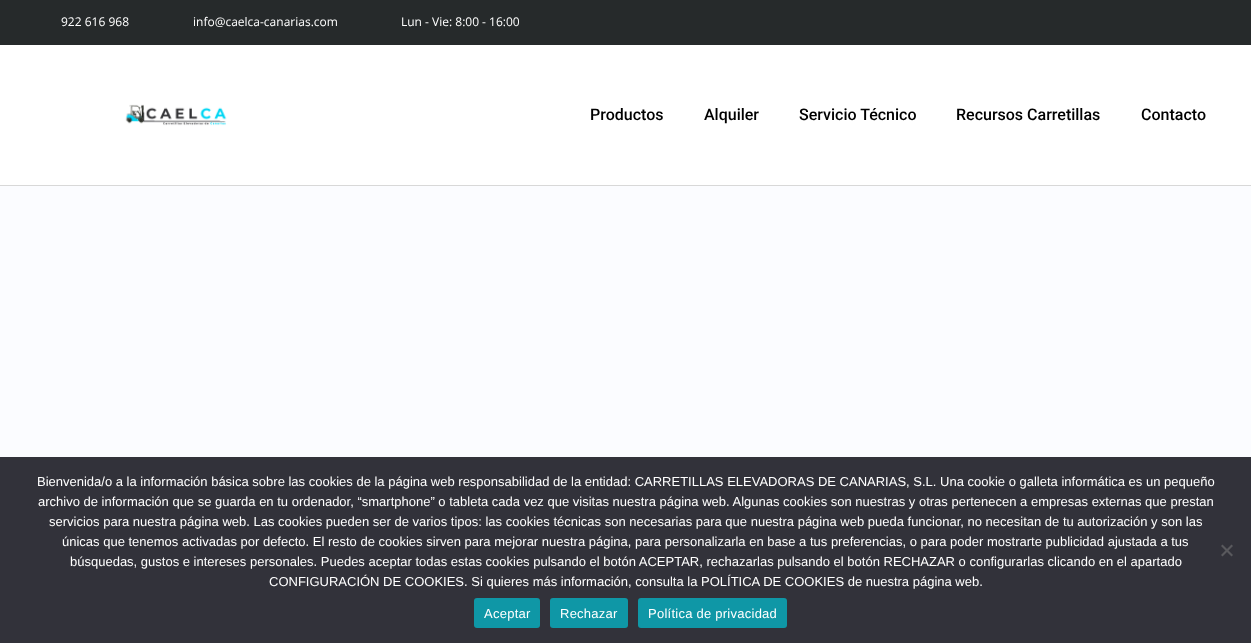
(async () => {
  const canvas = document.querySelector("canvas");
  canvas.width = 1251;
  canvas.height = 643;
  const ctx = canvas.getContext("2d");
  ctx.miterLimit = 4;
  ctx.fontKerning = "normal";
  async function loadImage(src) {
    const img = new Image();
    img.src = src;
    await img.decode();
    return img;
  }
  let path;

  ctx.fillStyle = "#fbfcff";
  ctx.fillRect(0, 0, 1251, 643);
  for (const [x, y, w, h, color] of [
    [0, 0, 1251, 45, "#262a2b"],
    [0, 45, 1251, 140, "#ffffff"],
    [0, 185, 1251, 1, "#d8d8d8"],
  ]) {
    ctx.fillStyle = color;
    ctx.fillRect(x, y, w, h);
  }
  ctx.drawImage(await loadImage("img/1.png"), 125, 104, 102, 22);
  ctx.fillStyle = "#32323a";
  ctx.fillRect(0, 457, 1251, 186);
  ctx.fillStyle = "#59595d";
  path = new Path2D("M1231.5 544.5L1233 546L1222.5 556.5L1221 555Z");
  ctx.fill(path);
  path = new Path2D("M1221 546L1222.5 544.5L1233 555L1231.5 556.5Z");
  ctx.fill(path);
  ctx.fillStyle = "#0f97a6";
  ctx.beginPath();
  ctx.roundRect(474, 598, 66, 30, 3);
  ctx.fill();
  ctx.beginPath();
  ctx.roundRect(550, 598, 78, 30, 3);
  ctx.fill();
  ctx.beginPath();
  ctx.roundRect(638, 598, 149, 30, 3);
  ctx.fill();
  ctx.font = "12px Open Sans";
  ctx.fillStyle = "#ffffff";
  for (const [text, x, y] of [
    ["922 616 968", 61, 26],
    ["info@caelca-canarias.com", 193, 26],
    ["Lun - Vie: 8:00 - 16:00", 401, 26],
  ]) {
    ctx.fillText(text, x, y);
  }
  ctx.font = "500 16px Roboto";
  ctx.fillStyle = "#000000";
  for (const [text, x, y] of [
    ["Productos", 590, 120],
    ["Alquiler", 704, 120],
    ["Servicio Técnico", 799, 120],
    ["Recursos Carretillas", 956, 120],
    ["Contacto", 1141, 120],
  ]) {
    ctx.fillText(text, x, y);
  }
  ctx.font = "13px Liberation Sans";
  ctx.fillStyle = "#ffffff";
  for (const [text, x, y] of [
    ["Bienvenida/o a la información básica sobre las cookies de la página web responsabilidad de la entidad: CARRETILLAS ELEVADORAS DE CANARIAS, S.L. Una cookie o galleta informática es un pequeño", 37, 486],
    ["archivo de información que se guarda en tu ordenador, “smartphone” o tableta cada vez que visitas nuestra página web. Algunas cookies son nuestras y otras pertenecen a empresas externas que prestan", 38, 506],
    ["servicios para nuestra página web. Las cookies pueden ser de varios tipos: las cookies técnicas son necesarias para que nuestra página web pueda funcionar, no necesitan de tu autorización y son las", 49, 526],
    ["únicas que tenemos activadas por defecto. El resto de cookies sirven para mejorar nuestra página, para personalizarla en base a tus preferencias, o para poder mostrarte publicidad ajustada a tus", 62, 546],
    ["búsquedas, gustos e intereses personales. Puedes aceptar todas estas cookies pulsando el botón ACEPTAR, rechazarlas pulsando el botón RECHAZAR o configurarlas clicando en el apartado", 70, 566],
    ["CONFIGURACIÓN DE COOKIES. Si quieres más información, consulta la POLÍTICA DE COOKIES de nuestra página web.", 269, 586],
  ]) {
    ctx.fillText(text, x, y);
  }
  ctx.letterSpacing = "0.25px";
  for (const [text, x, y] of [
    ["Aceptar", 484, 618],
    ["Rechazar", 560, 618],
    ["Política de privacidad", 648, 618],
  ]) {
    ctx.fillText(text, x, y);
  }
})();
